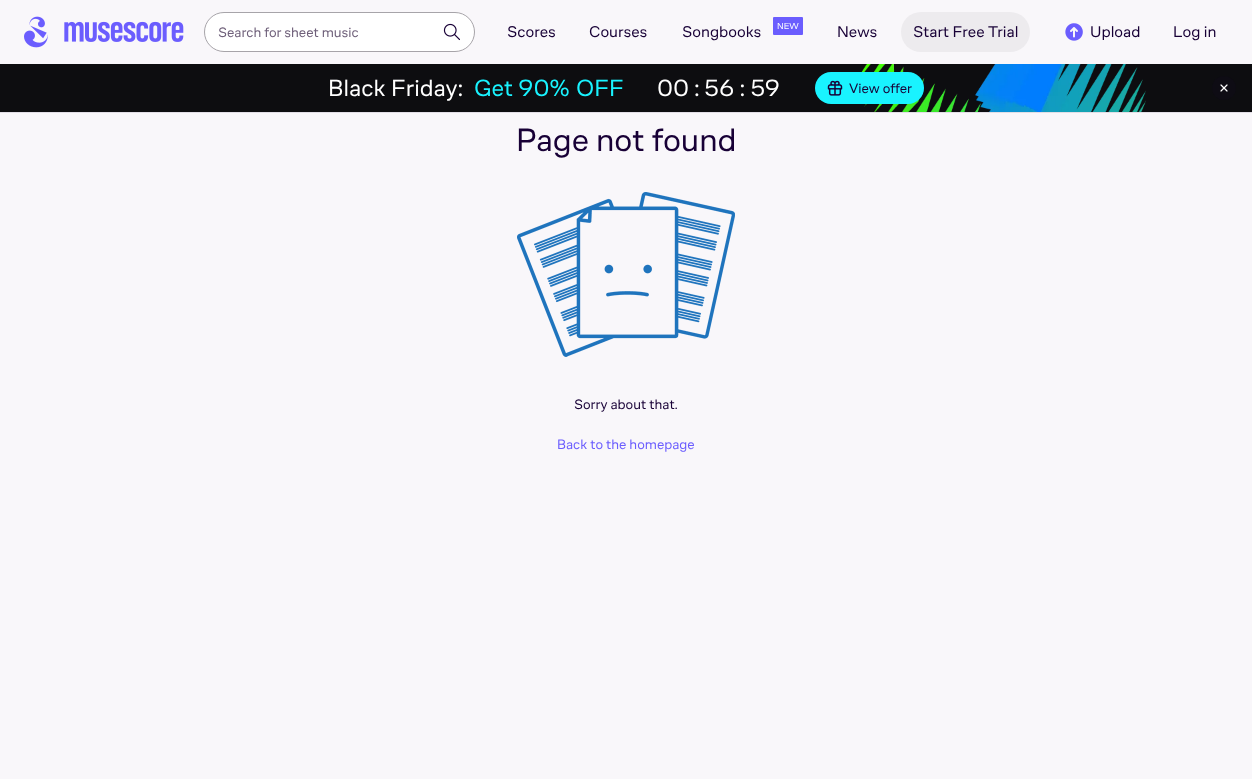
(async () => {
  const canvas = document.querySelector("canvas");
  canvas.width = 1252;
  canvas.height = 779;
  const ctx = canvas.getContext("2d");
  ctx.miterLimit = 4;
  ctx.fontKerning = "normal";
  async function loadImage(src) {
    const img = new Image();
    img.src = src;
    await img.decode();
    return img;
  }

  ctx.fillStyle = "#f9f7fa";
  ctx.fillRect(0, 0, 1252, 779);
  ctx.fillStyle = "#e2dee6";
  ctx.fillRect(0, 112, 1252, 1);
  ctx.drawImage(await loadImage("img/1.png"), 24, 16, 160, 32);
  ctx.fillStyle = "#ffffff";
  ctx.beginPath();
  ctx.roundRect(204.5, 12.5, 270, 39, 19.5);
  ctx.fill();
  ctx.strokeStyle = "#a7a4a9";
  ctx.stroke();
  ctx.drawImage(await loadImage("img/2.png"), 443, 23, 17, 18);
  ctx.fillStyle = "#6b5dfe";
  ctx.beginPath();
  ctx.roundRect(773, 17, 30, 18, 1);
  ctx.fill();
  ctx.fillStyle = "#edebee";
  ctx.beginPath();
  ctx.roundRect(901, 12, 129, 40, 20);
  ctx.fill();
  ctx.drawImage(await loadImage("img/3.png"), 1065, 23, 18, 18);
  ctx.fillStyle = "#0d0d10";
  ctx.fillRect(0, 64, 1252, 48);
  ctx.drawImage(await loadImage("img/4.png"), 861, 64, 285, 48);
  ctx.fillStyle = "#19f3ff";
  ctx.beginPath();
  ctx.roundRect(815, 72, 109, 32, 16);
  ctx.fill();
  ctx.drawImage(await loadImage("img/5.png"), 827, 80, 16, 16);
  ctx.fillStyle = "#0e0c14";
  ctx.beginPath();
  ctx.arc(1224, 88, 12, 0, Math.PI * 2);
  ctx.fill();
  ctx.drawImage(await loadImage("img/6.png"), 1220, 84, 8, 8);
  ctx.drawImage(await loadImage("img/7.png"), 517, 192, 218, 165);
  ctx.font = "14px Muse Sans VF";
  ctx.fillStyle = "#6e5f79";
  ctx.fillText("Search for sheet music", 218, 37);
  ctx.font = "16px Muse Sans VF";
  ctx.fillStyle = "#180036";
  for (const [text, x, y] of [
    ["Scores", 507, 37],
    ["Courses", 589, 37],
    ["Songbooks", 682, 37],
  ]) {
    ctx.fillText(text, x, y);
  }
  ctx.font = "9px Muse Sans VF";
  ctx.fillStyle = "#ffffff";
  ctx.fillText("NEW", 777, 29);
  ctx.font = "16px Muse Sans VF";
  ctx.fillStyle = "#180036";
  for (const [text, x, y] of [
    ["News", 837, 37],
    ["Start Free Trial", 913, 37],
    ["Upload", 1090, 37],
    ["Log in", 1173, 37],
  ]) {
    ctx.fillText(text, x, y);
  }
  ctx.font = "24px Muse Sans VF";
  ctx.fillStyle = "#ffffff";
  ctx.fillText("Black", 328, 96);
  ctx.fillText("Friday:", 391, 96);
  ctx.fillStyle = "#19f3ff";
  for (const [text, x, y] of [
    ["Get", 474, 96],
    ["90%", 518, 96],
    ["OFF", 576, 96],
  ]) {
    ctx.fillText(text, x, y);
  }
  ctx.fillStyle = "#ffffff";
  for (const [text, x, y] of [
    ["00", 657, 96],
    [":", 694, 96],
    ["56 : 59", 704, 96],
  ]) {
    ctx.fillText(text, x, y);
  }
  ctx.font = "14px Muse Sans VF";
  ctx.fillStyle = "#180036";
  ctx.fillText("View offer", 849, 93);
  ctx.font = "33px Muse Sans VF";
  ctx.fillText("Page not found", 516, 151);
  ctx.font = "14px Muse Sans VF";
  ctx.fillText("Sorry about that.", 574, 409);
  ctx.fillStyle = "#6b5dfe";
  ctx.fillText("Back to the homepage", 557, 449);
})();
